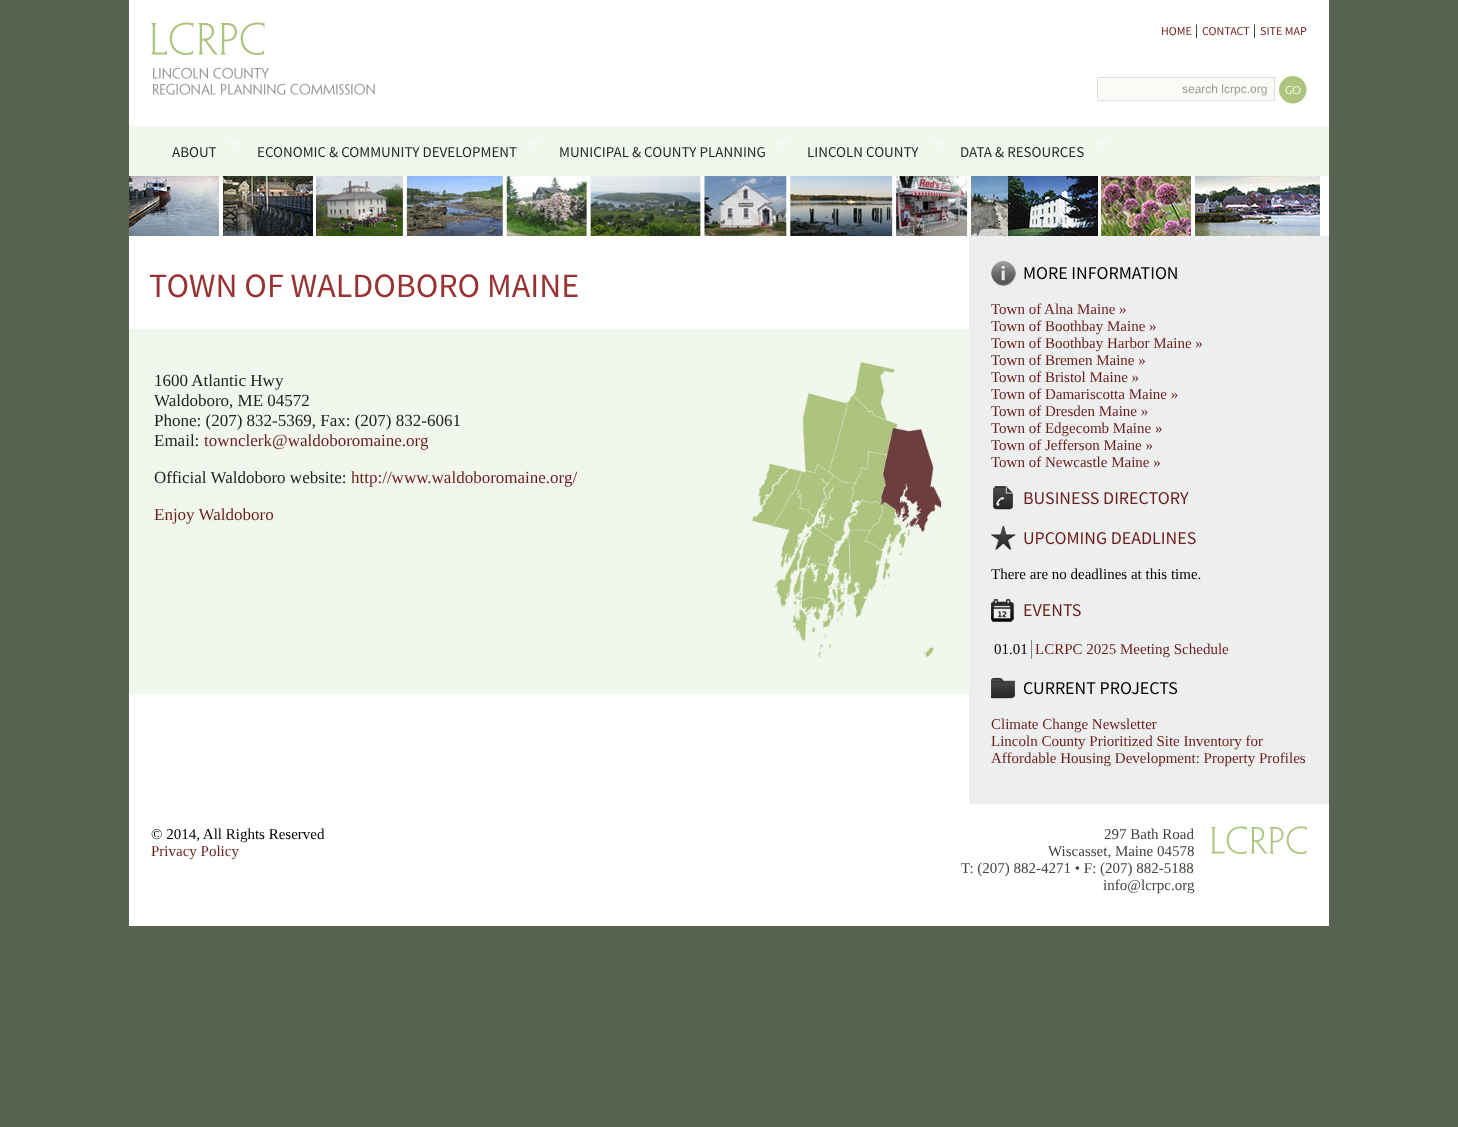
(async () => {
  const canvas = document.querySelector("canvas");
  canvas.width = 1458;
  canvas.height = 1127;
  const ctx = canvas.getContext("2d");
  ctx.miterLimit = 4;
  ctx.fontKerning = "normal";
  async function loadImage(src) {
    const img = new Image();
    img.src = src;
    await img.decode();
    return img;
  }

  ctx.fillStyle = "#596351";
  ctx.fillRect(0, 0, 1458, 1127);
  ctx.fillStyle = "#ffffff";
  ctx.fillRect(129, 0, 1200, 926);
  ctx.drawImage(await loadImage("img/1.png"), 151, 22, 224, 73);
  ctx.fillStyle = "#f9fbf6";
  ctx.beginPath();
  ctx.rect(1097.5, 77.5, 177, 23);
  ctx.fill();
  ctx.strokeStyle = "#dddddd";
  ctx.stroke();
  ctx.drawImage(await loadImage("img/2.png"), 1279, 76, 28, 28);
  ctx.fillStyle = "#f1f7ec";
  ctx.fillRect(129, 126, 1200, 50);
  ctx.drawImage(await loadImage("img/3.png"), 230, 141, 9, 5);
  ctx.drawImage(await loadImage("img/3.png"), 531, 141, 9, 5);
  ctx.drawImage(await loadImage("img/3.png"), 779, 141, 9, 5);
  ctx.drawImage(await loadImage("img/3.png"), 932, 141, 9, 5);
  ctx.drawImage(await loadImage("img/3.png"), 1097, 141, 9, 5);
  ctx.drawImage(await loadImage("img/4.png"), 129, 176, 1200, 60);
  ctx.fillRect(129, 329, 840, 365);
  ctx.drawImage(await loadImage("img/5.png"), 751, 361, 191, 298);
  ctx.fillStyle = "#edeeee";
  ctx.fillRect(969, 236, 360, 568);
  ctx.drawImage(await loadImage("img/6.png"), 991, 261, 25, 25);
  ctx.drawImage(await loadImage("img/7.png"), 993, 486, 20, 24);
  ctx.drawImage(await loadImage("img/8.png"), 991, 526, 25, 24);
  ctx.drawImage(await loadImage("img/9.png"), 991, 599, 23, 23);
  ctx.fillStyle = "#808080";
  ctx.fillRect(1031, 640, 1, 19);
  ctx.drawImage(await loadImage("img/10.png"), 991, 678, 24, 21);
  ctx.drawImage(await loadImage("img/11.png"), 1211, 826, 96, 28);
  ctx.font = "12px Source Sans Pro";
  ctx.fillStyle = "#6a1d1d";
  ctx.fillText("HOME", 1161, 35);
  ctx.font = "15px Liberation Serif";
  ctx.fillStyle = "#000000";
  ctx.fillText("|", 1195, 35);
  ctx.font = "12px Source Sans Pro";
  ctx.fillStyle = "#6a1d1d";
  ctx.fillText("CONTACT", 1202, 35);
  ctx.font = "15px Liberation Serif";
  ctx.fillStyle = "#000000";
  ctx.fillText("|", 1253, 35);
  ctx.font = "12px Source Sans Pro";
  ctx.fillStyle = "#6a1d1d";
  ctx.fillText("SITE MAP", 1260, 35);
  ctx.font = "12px Liberation Sans";
  ctx.fillStyle = "#999999";
  ctx.fillText("search lcrpc.org", 1182, 93);
  ctx.font = "15px Source Sans Pro";
  ctx.fillStyle = "#292828";
  for (const [text, x, y] of [
    ["ABOUT", 172, 157],
    ["ECONOMIC & COMMUNITY DEVELOPMENT", 257, 157],
    ["MUNICIPAL & COUNTY PLANNING", 559, 157],
    ["LINCOLN COUNTY", 807, 157],
    ["DATA & RESOURCES", 960, 157],
  ]) {
    ctx.fillText(text, x, y);
  }
  ctx.font = "34px Source Sans Pro";
  ctx.fillStyle = "#993333";
  ctx.fillText("TOWN OF WALDOBORO MAINE", 149, 297);
  ctx.font = "17px Liberation Serif";
  ctx.fillStyle = "#222222";
  for (const [text, x, y] of [
    ["1600 Atlantic Hwy", 154, 386],
    ["Waldoboro, ME 04572", 154, 406],
    ["Phone: (207) 832-5369, Fax: (207) 832-6061", 154, 426],
    ["Email:", 154, 446],
  ]) {
    ctx.fillText(text, x, y);
  }
  ctx.fillStyle = "#6a1d1d";
  ctx.fillText("townclerk@waldoboromaine.org", 204, 446);
  ctx.fillStyle = "#222222";
  ctx.fillText("Official Waldoboro website:", 154, 483);
  ctx.fillStyle = "#6a1d1d";
  ctx.fillText("http://www.waldoboromaine.org/", 351, 483);
  ctx.fillText("Enjoy Waldoboro", 154, 520);
  ctx.font = "18px Source Sans Pro";
  ctx.fillStyle = "#000000";
  ctx.fillText("MORE INFORMATION", 1023, 279);
  ctx.font = "15px Liberation Serif";
  ctx.fillStyle = "#6a1d1d";
  for (const [text, x, y] of [
    ["Town of Alna Maine »", 991, 314],
    ["Town of Boothbay Maine »", 991, 331],
    ["Town of Boothbay Harbor Maine »", 991, 348],
    ["Town of Bremen Maine »", 991, 365],
    ["Town of Bristol Maine »", 991, 382],
    ["Town of Damariscotta Maine »", 991, 399],
    ["Town of Dresden Maine »", 991, 416],
    ["Town of Edgecomb Maine »", 991, 433],
    ["Town of Jefferson Maine »", 991, 450],
    ["Town of Newcastle Maine »", 991, 467],
  ]) {
    ctx.fillText(text, x, y);
  }
  ctx.font = "18px Source Sans Pro";
  ctx.fillText("BUSINESS DIRECTORY", 1023, 504);
  ctx.fillText("UPCOMING DEADLINES", 1023, 544);
  ctx.font = "15px Liberation Serif";
  ctx.fillStyle = "#000000";
  ctx.fillText("There are no deadlines at this time.", 991, 579);
  ctx.font = "18px Source Sans Pro";
  ctx.fillStyle = "#6a1d1d";
  ctx.fillText("EVENTS", 1023, 616);
  ctx.font = "15px Liberation Serif";
  ctx.fillStyle = "#000000";
  ctx.fillText("01.01", 994, 654);
  ctx.fillStyle = "#6a1d1d";
  ctx.fillText("LCRPC 2025 Meeting Schedule", 1035, 654);
  ctx.font = "18px Source Sans Pro";
  ctx.fillStyle = "#000000";
  ctx.fillText("CURRENT PROJECTS", 1023, 694);
  ctx.font = "15px Liberation Serif";
  ctx.fillStyle = "#6a1d1d";
  for (const [text, x, y] of [
    ["Climate Change Newsletter", 991, 729],
    ["Lincoln County Prioritized Site Inventory for", 991, 746],
    ["Affordable Housing Development: Property Profiles", 991, 763],
  ]) {
    ctx.fillText(text, x, y);
  }
  ctx.fillStyle = "#000000";
  ctx.fillText("© 2014, All Rights Reserved", 151, 839);
  ctx.fillStyle = "#6a1d1d";
  ctx.fillText("Privacy Policy", 151, 856);
  ctx.fillStyle = "#41453d";
  for (const [text, x, y] of [
    ["297 Bath Road", 1104, 839],
    ["Wiscasset, Maine 04578", 1048, 856],
    ["T: (207) 882-4271 • F: (207) 882-5188", 961, 873],
    ["info@lcrpc.org", 1103, 890],
  ]) {
    ctx.fillText(text, x, y);
  }
})();
